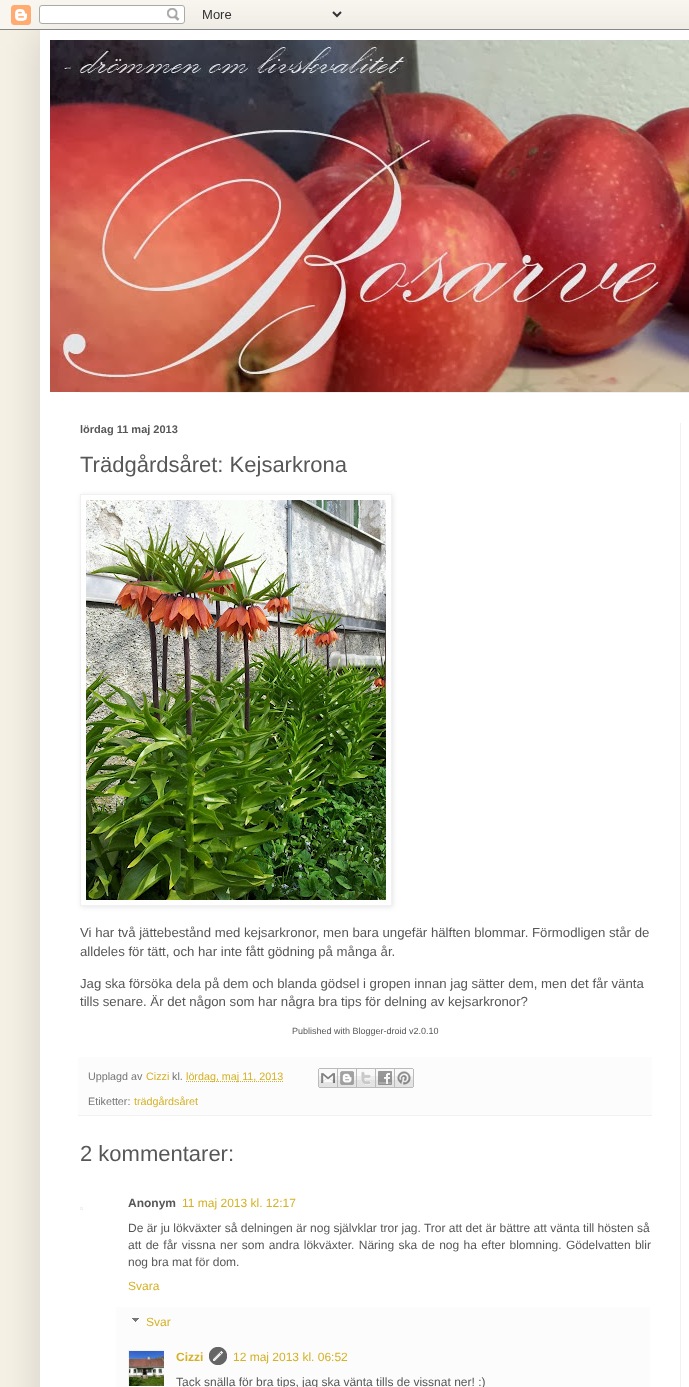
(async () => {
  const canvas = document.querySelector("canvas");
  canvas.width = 689;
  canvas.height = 1387;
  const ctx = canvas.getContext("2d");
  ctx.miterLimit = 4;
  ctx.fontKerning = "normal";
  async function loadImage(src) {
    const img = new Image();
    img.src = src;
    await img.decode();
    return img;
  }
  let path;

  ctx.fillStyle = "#f5f1e5";
  ctx.fillRect(0, 0, 689, 1387);
  ctx.fillStyle = "rgba(0, 0, 0, 0.15)";
  ctx.filter = "blur(20px)";
  ctx.beginPath();
  ctx.rect(40, 30, 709, 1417);
  ctx.fill();
  ctx.filter = "none";
  ctx.drawImage(await loadImage("img/1.png"), 0, 0, 689, 30);
  ctx.fillStyle = "#ffffff";
  ctx.fillRect(40, 30, 649, 1357);
  ctx.drawImage(await loadImage("img/2.png"), 50, 40, 639, 352);
  ctx.fillStyle = "#f1f1f1";
  ctx.fillRect(80, 392, 609, 1);
  ctx.save();
  path = new Path2D("M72 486H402V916H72ZM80 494H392V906H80Z");
  ctx.clip(path, "evenodd");
  ctx.fillStyle = "rgba(0, 0, 0, 0.1)";
  ctx.filter = "blur(2.5px)";
  ctx.beginPath();
  ctx.rect(81, 495, 312, 412);
  ctx.fill();
  ctx.filter = "none";
  ctx.restore();
  ctx.strokeStyle = "#f1f1f1";
  ctx.strokeRect(80.5, 494.5, 311, 411);
  ctx.drawImage(await loadImage("img/3.png"), 86, 500, 300, 400);
  ctx.fillStyle = "#fcfcfc";
  ctx.fillRect(78, 1057, 574, 58);
  ctx.fillStyle = "#f1f1f1";
  ctx.fillRect(78, 1115, 574, 1);
  path = new Path2D("M186 1081.5H283.5");
  ctx.strokeStyle = "#d4b126";
  ctx.setLineDash([1, 1]);
  ctx.stroke(path);
  ctx.drawImage(await loadImage("img/4.png"), 318, 1068, 20, 20);
  ctx.drawImage(await loadImage("img/5.png"), 338, 1068, 19, 20);
  ctx.drawImage(await loadImage("img/6.png"), 357, 1068, 19, 20);
  ctx.drawImage(await loadImage("img/7.png"), 376, 1068, 19, 20);
  ctx.drawImage(await loadImage("img/8.png"), 395, 1068, 19, 20);
  ctx.strokeStyle = "#f1f1f1";
  ctx.setLineDash([]);
  ctx.strokeRect(80.5, 1207.5, 2, 2);
  ctx.fillStyle = "#fcfcfc";
  ctx.fillRect(116, 1307, 534, 80);
  ctx.drawImage(await loadImage("img/9.png"), 132, 1318, 7, 4);
  ctx.save();
  ctx.beginPath();
  ctx.rect(128, 1350, 36, 36);
  ctx.clip();
  ctx.strokeRect(128.5, 1350.5, 37, 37);
  ctx.restore();
  ctx.drawImage(await loadImage("img/10.png"), 129, 1351, 35, 35);
  ctx.drawImage(await loadImage("img/11.png"), 209, 1347, 18, 18);
  ctx.fillStyle = "#f1f1f1";
  ctx.fillRect(680, 423, 1, 964);
  ctx.font = "bold 11px Liberation Sans";
  ctx.fillStyle = "#575757";
  ctx.fillText("lördag 11 maj 2013", 80, 433);
  ctx.font = "22px Liberation Sans";
  ctx.fillText("Trädgårdsåret: Kejsarkrona", 80, 472);
  ctx.font = "13.2px Liberation Sans";
  for (const [text, x, y] of [
    ["Vi har två jättebestånd med kejsarkronor, men bara ungefär hälften blommar. Förmodligen står de", 80, 937],
    ["alldeles för tätt, och har inte fått gödning på många år.", 80, 956],
    ["Jag ska försöka dela på dem och blanda gödsel i gropen innan jag sätter dem, men det får vänta", 80, 988],
    ["tills senare. Är det någon som har några bra tips för delning av kejsarkronor?", 80, 1006],
  ]) {
    ctx.fillText(text, x, y);
  }
  ctx.font = "9px Liberation Sans";
  ctx.fillText("Published with Blogger-droid v2.0.10", 292, 1034);
  ctx.font = "10.75px Liberation Sans";
  ctx.fillStyle = "#767676";
  ctx.fillText("Upplagd av", 88, 1080);
  ctx.fillStyle = "#d4b126";
  ctx.fillText("Cizzi", 146, 1080);
  ctx.fillStyle = "#767676";
  ctx.fillText("kl.", 172, 1080);
  ctx.fillStyle = "#d4b126";
  ctx.fillText("lördag, maj 11, 2013", 186, 1080);
  ctx.fillStyle = "#767676";
  ctx.fillText("Etiketter:", 88, 1105);
  ctx.fillStyle = "#d4b126";
  ctx.fillText("trädgårdsåret", 134, 1105);
  ctx.font = "22px Liberation Sans";
  ctx.fillStyle = "#575757";
  ctx.fillText("2 kommentarer:", 80, 1161);
  ctx.font = "bold 12px Liberation Sans";
  ctx.fillText("Anonym", 128, 1207);
  ctx.font = "12px Liberation Sans";
  ctx.fillStyle = "#d4b126";
  ctx.fillText("11 maj 2013 kl. 12:17", 182, 1207);
  ctx.fillStyle = "#575757";
  ctx.fillText("De är ju lökväxter så delningen är nog självklar tror jag. Tror att det är bättre att vänta till hösten så", 128, 1232);
  ctx.wordSpacing = "1px";
  ctx.fillText("att de får vissna ner som andra lökväxter. Näring ska de nog ha efter blomning. Gödelvatten blir", 128, 1249);
  ctx.wordSpacing = "0px";
  ctx.fillText("nog bra mat för dom.", 128, 1266);
  ctx.fillStyle = "#d4b126";
  ctx.fillText("Svara", 128, 1290);
  ctx.fillText("Svar", 146, 1326);
  ctx.font = "bold 12px Liberation Sans";
  ctx.fillText("Cizzi", 176, 1361);
  ctx.font = "12px Liberation Sans";
  ctx.fillText("12 maj 2013 kl. 06:52", 233, 1361);
  ctx.fillStyle = "#575757";
  ctx.fillText("Tack snälla för bra tips, jag ska vänta tills de vissnat ner! :)", 176, 1386);
})();
